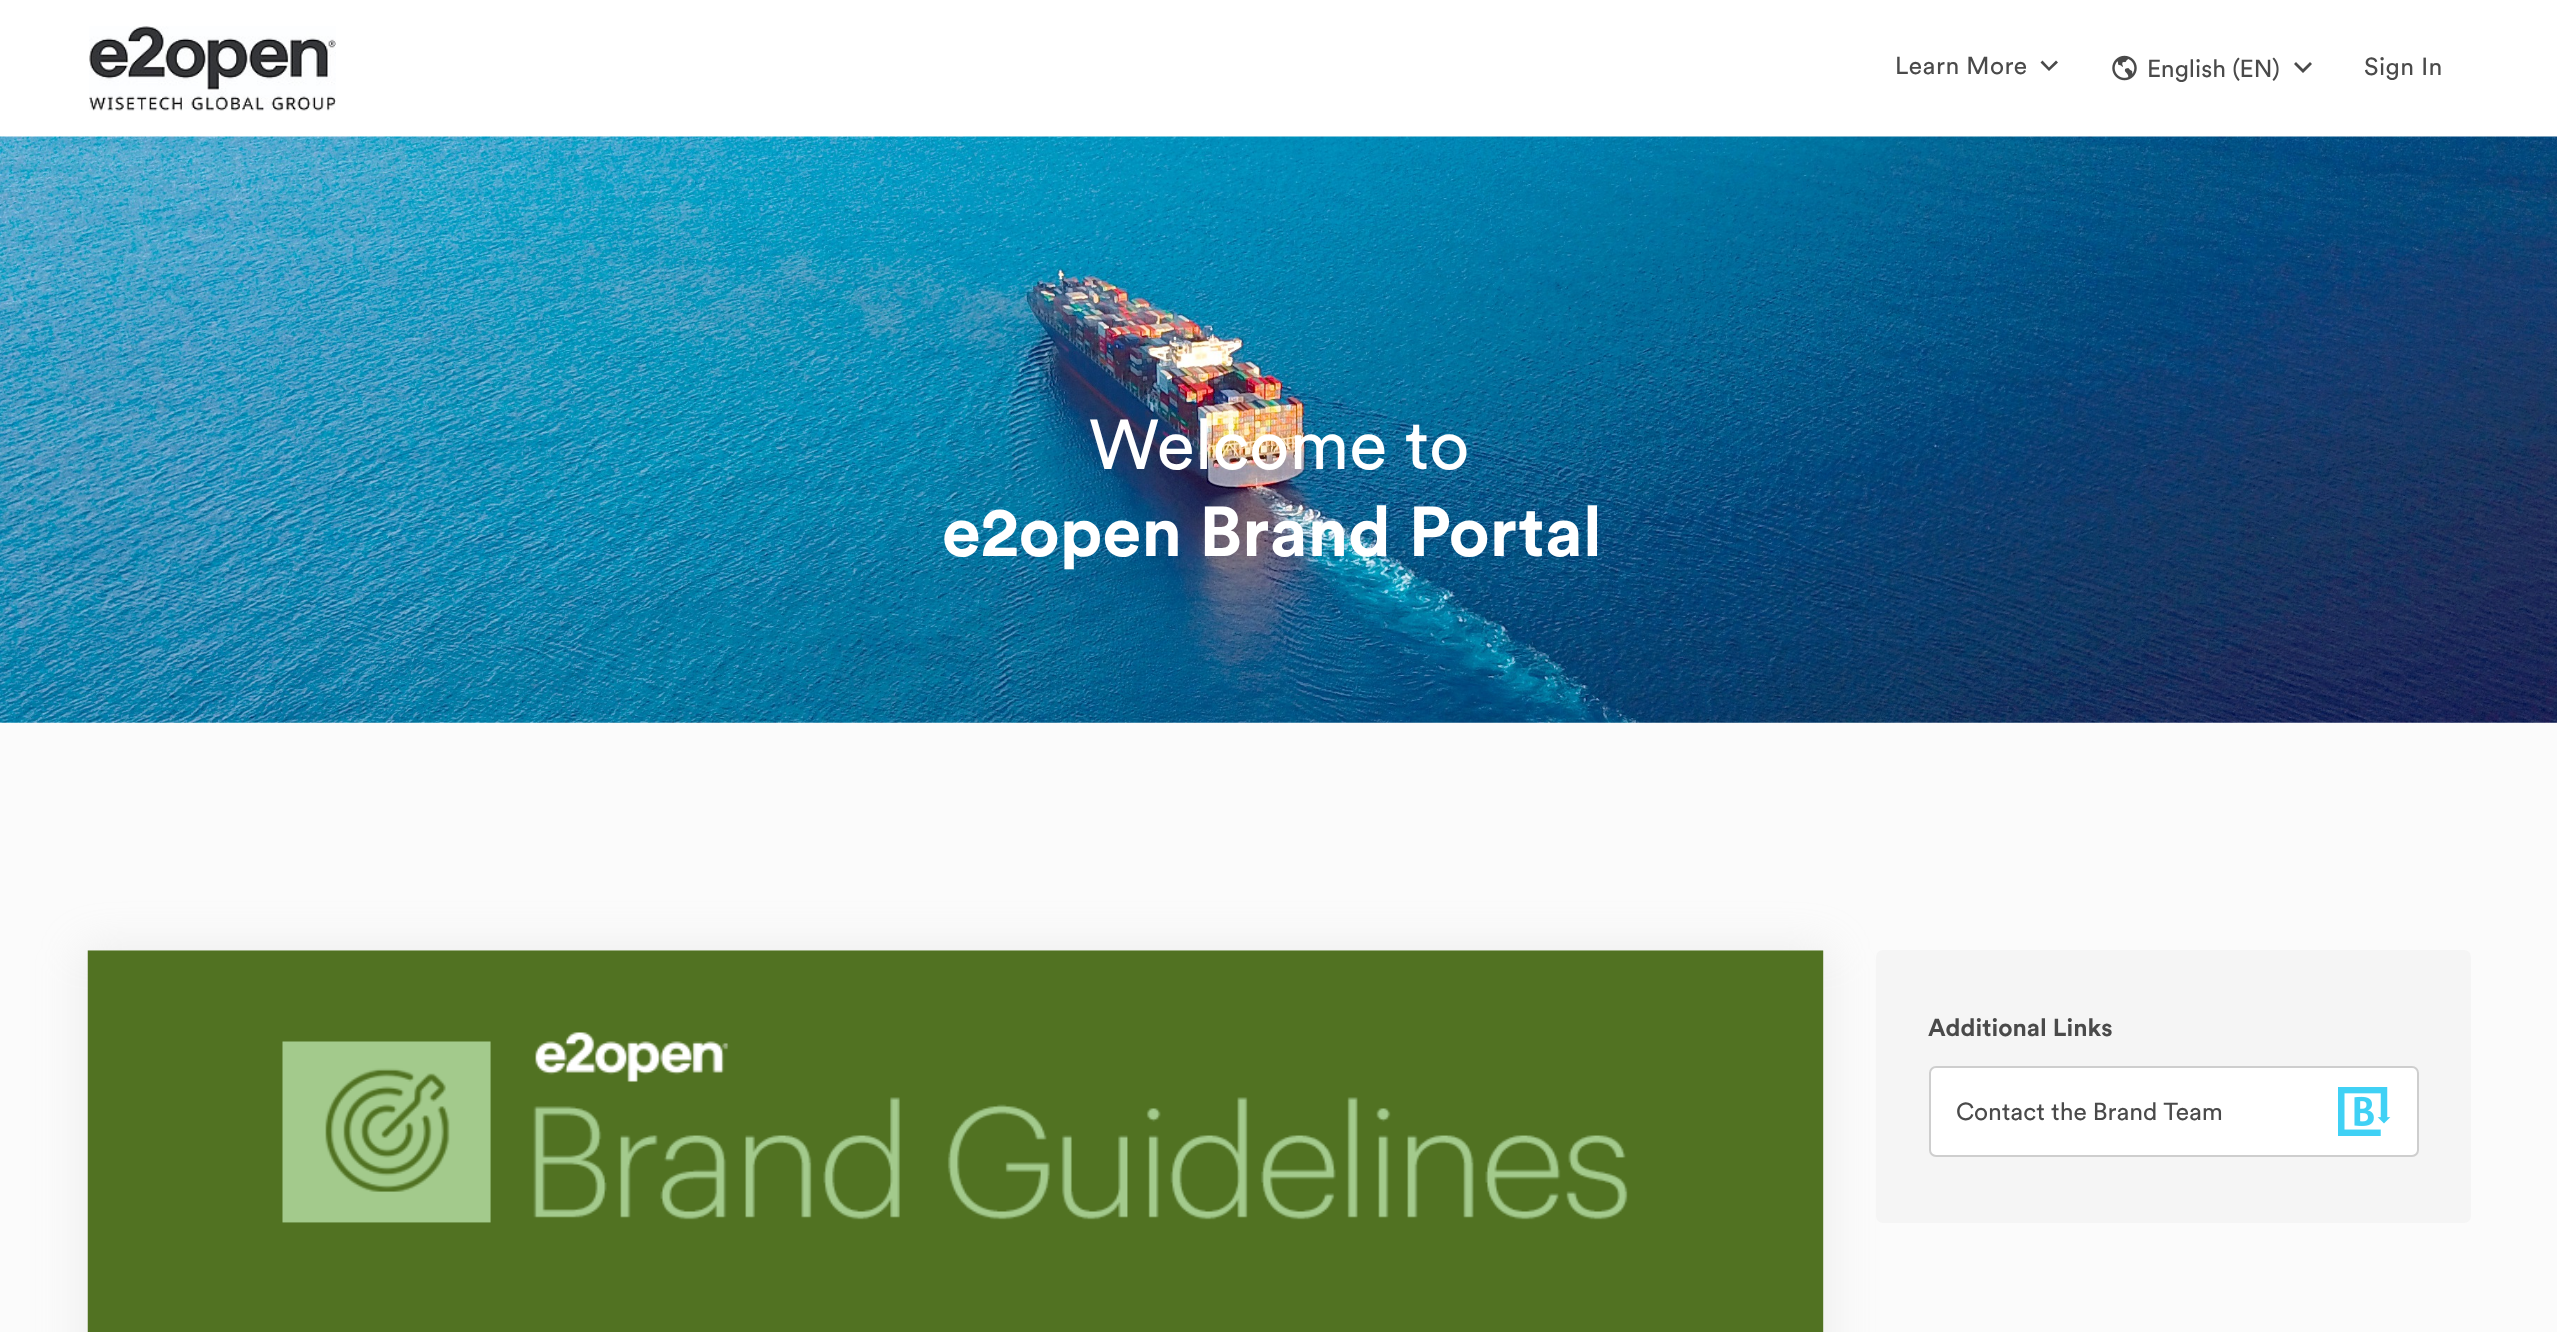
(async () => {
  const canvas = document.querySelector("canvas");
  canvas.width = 2557;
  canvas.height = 1332;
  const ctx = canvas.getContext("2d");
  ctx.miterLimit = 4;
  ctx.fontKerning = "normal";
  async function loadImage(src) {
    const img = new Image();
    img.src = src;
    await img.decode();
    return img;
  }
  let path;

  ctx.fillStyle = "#ffffff";
  ctx.fillRect(0, 0, 2557, 1332);
  ctx.drawImage(await loadImage("img/1.png"), 89, 26, 247, 85);
  ctx.fillStyle = "#4a4a4a";
  path = new Path2D("M2049 67.5L2056 60.5L2058 62.5L2049 71L2040.5 62.5L2042.5 60.5Z");
  ctx.fill(path);
  ctx.drawImage(await loadImage("img/2.png"), 2112, 55, 25, 26);
  path = new Path2D("M2303 69L2310 62L2312 64L2303 73L2294 64L2296 62Z");
  ctx.fill(path);
  ctx.drawImage(await loadImage("img/3.png"), 0, 136, 2557, 587);
  ctx.fillStyle = "#fbfbfb";
  ctx.fillRect(0, 723, 2557, 609);
  ctx.fillStyle = "#f5f5f5";
  ctx.beginPath();
  ctx.roundRect(1876, 950, 595, 273, 7);
  ctx.fill();
  ctx.fillStyle = "rgba(203, 203, 203, 0.25)";
  ctx.filter = "blur(20px)";
  ctx.beginPath();
  ctx.roundRect(79, 945, 1753, 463, 16);
  ctx.fill();
  ctx.filter = "none";
  ctx.fillStyle = "#ffffff";
  ctx.fillRect(88, 950, 1736, 382);
  ctx.drawImage(await loadImage("img/4.png"), 87, 950, 1737, 382);
  ctx.beginPath();
  ctx.roundRect(1930, 1067, 488, 89, 6);
  ctx.fill();
  ctx.strokeStyle = "#cecece";
  ctx.lineWidth = 2;
  ctx.stroke();
  ctx.drawImage(await loadImage("img/5.png"), 2338, 1087, 53, 49);
  ctx.letterSpacing = "0.5px";
  ctx.font = "24.5px Circular";
  ctx.fillStyle = "#4a4a4a";
  ctx.fillText("Learn More", 1895, 74);
  ctx.letterSpacing = "0px";
  ctx.fillText("English (EN)", 2147, 77);
  ctx.letterSpacing = "0.5px";
  ctx.fillText("Sign In", 2364, 75);
  ctx.letterSpacing = "0px";
  ctx.font = "70px Circular";
  ctx.fillStyle = "#ffffff";
  ctx.fillText("Welcome to", 1089, 469);
  ctx.font = "bold 70px Circular";
  ctx.fillText("e2open Brand Portal", 942, 556);
  ctx.font = "bold 24.5px Circular";
  ctx.fillStyle = "#4a4a4a";
  ctx.fillText("Additional Links", 1928, 1036);
  ctx.save();
  ctx.beginPath();
  ctx.rect(1957, 1068, 381, 87);
  ctx.clip();
  ctx.font = "24.5px Circular";
  ctx.fillText("Contact the Brand Team", 1956, 1120);
  ctx.restore();
})();
